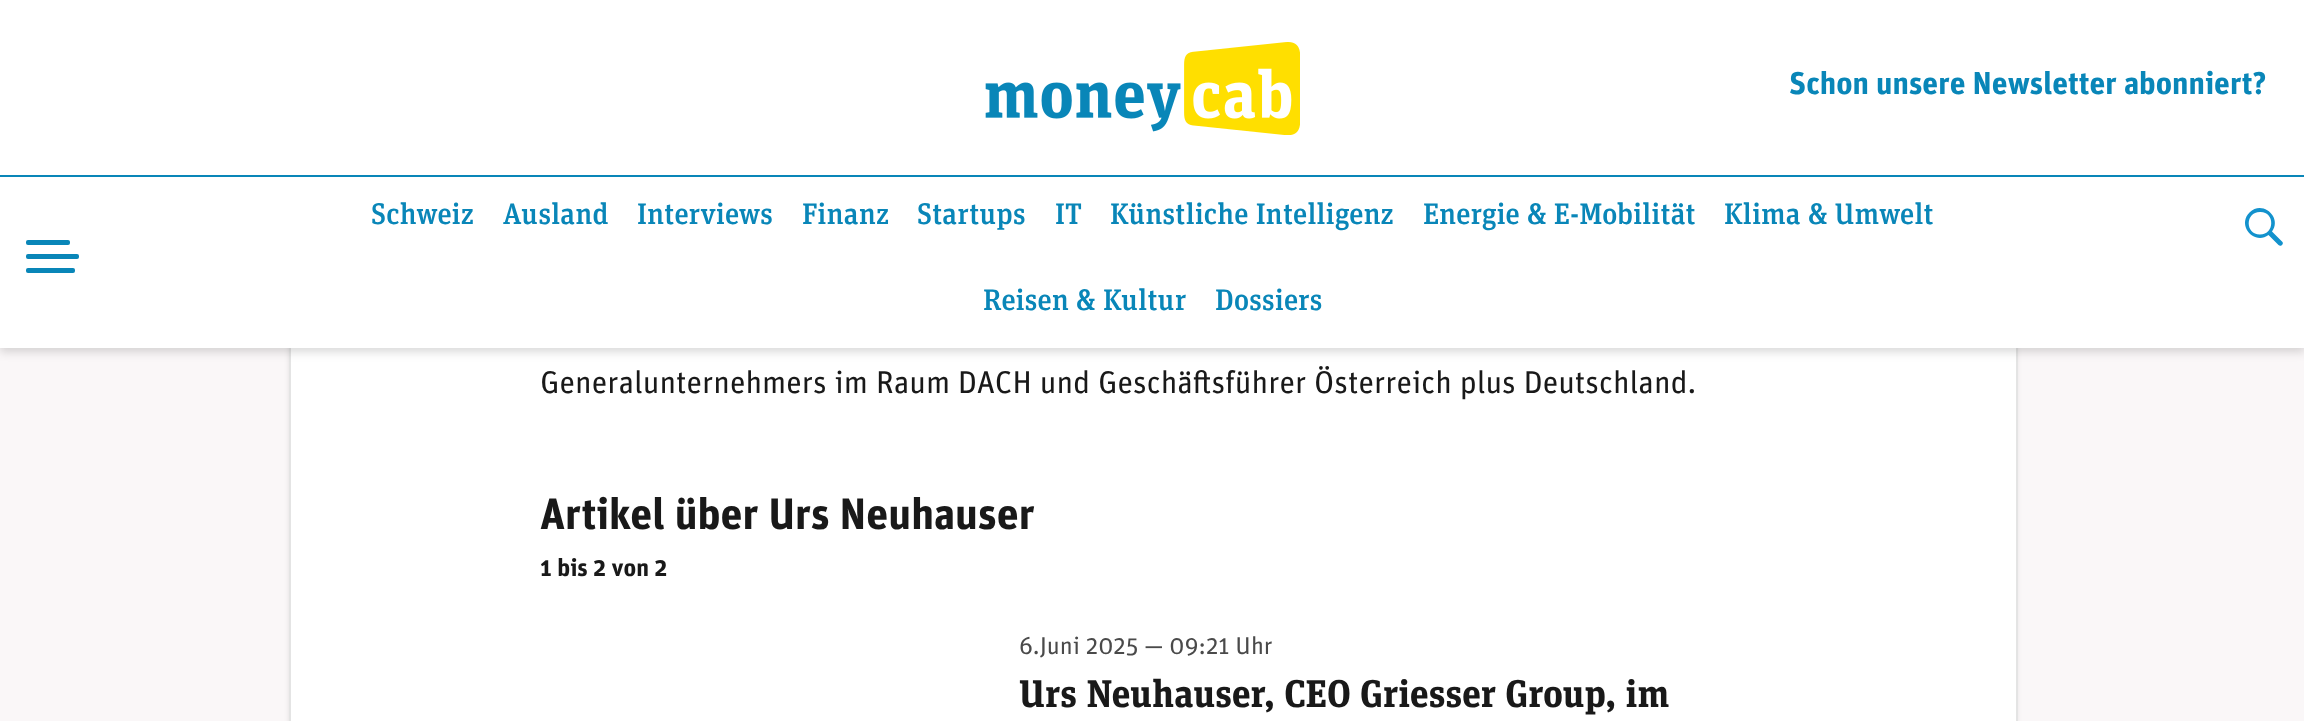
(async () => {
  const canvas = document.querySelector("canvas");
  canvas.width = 2304;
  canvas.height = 721;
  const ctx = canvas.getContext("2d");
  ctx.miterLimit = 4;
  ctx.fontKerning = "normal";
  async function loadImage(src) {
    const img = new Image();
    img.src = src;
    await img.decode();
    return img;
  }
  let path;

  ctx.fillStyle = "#faf7f8";
  ctx.fillRect(0, 0, 2304, 721);
  ctx.fillStyle = "rgba(0, 0, 0, 0.26)";
  ctx.filter = "blur(3.5px)";
  ctx.beginPath();
  ctx.rect(292, -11, 1722, 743);
  ctx.fill();
  ctx.filter = "none";
  ctx.fillStyle = "#ffffff";
  ctx.fillRect(291, 348, 1725, 373);
  ctx.strokeStyle = "#e4e4e4";
  ctx.lineWidth = 2;
  ctx.strokeRect(290, -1, 1727, 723);
  ctx.fillStyle = "rgba(0, 0, 0, 0.15)";
  ctx.filter = "blur(5px)";
  ctx.beginPath();
  ctx.rect(0, 4, 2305, 348);
  ctx.fill();
  ctx.filter = "none";
  ctx.fillStyle = "#ffffff";
  ctx.fillRect(0, 0, 2304, 348);
  ctx.fillStyle = "#0986b8";
  ctx.fillRect(0, 175, 2304, 2);
  ctx.drawImage(await loadImage("img/1.png"), 985, 42, 315, 93);
  ctx.fillStyle = "#1392cd";
  path = new Path2D("M2268.5 235C2254.5 245.5 2236.5 225.5 2249.5 212.5C2262.5 199.5 2282.5 217.5 2272 231.5L2282.5 242C2284 244.5 2280.5 247 2278.5 245ZM2260 234.5C2275 234.5 2275 211.5 2260 212C2245 212 2245 234.5 2260 234.5Z");
  ctx.fill(path);
  ctx.fillStyle = "#0986b8";
  ctx.beginPath();
  ctx.roundRect(26, 254, 53, 5, 2);
  ctx.fill();
  ctx.beginPath();
  ctx.roundRect(26, 240, 44, 5, 2);
  ctx.fill();
  ctx.beginPath();
  ctx.roundRect(26, 268, 49, 5, 2);
  ctx.fill();
  ctx.font = "bold 31.5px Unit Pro";
  ctx.fillText("Schon unsere Newsletter abonniert?", 1789, 94);
  ctx.font = "500 29.75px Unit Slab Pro";
  for (const [text, x, y] of [
    ["Schweiz", 371, 224],
    ["Ausland", 503, 224],
    ["Interviews", 637, 224],
    ["Finanz", 802, 224],
    ["Startups", 917, 224],
    ["IT", 1055, 224],
    ["Künstliche Intelligenz", 1110, 224],
    ["Energie & E-Mobilität", 1423, 224],
    ["Klima & Umwelt", 1724, 224],
    ["Reisen & Kultur", 983, 310],
    ["Dossiers", 1215, 310],
  ]) {
    ctx.fillText(text, x, y);
  }
  ctx.wordSpacing = "0.25px";
  ctx.font = "31.5px Unit Pro";
  ctx.fillStyle = "#191919";
  ctx.fillText("Generalunternehmers im Raum DACH und Geschäftsführer Österreich plus Deutschland.", 540, 393);
  ctx.wordSpacing = "0px";
  ctx.font = "bold 43.75px Unit Pro";
  ctx.fillText("Artikel über Urs Neuhauser", 540, 529);
  ctx.font = "bold 24.5px Unit Pro";
  ctx.fillText("1 bis 2 von 2", 540, 576);
  ctx.font = "24.5px Unit Pro";
  ctx.fillStyle = "#4a4a4a";
  ctx.fillText("6.Juni 2025 — 09:21 Uhr", 1019, 654);
  ctx.font = "bold 38.5px Unit Slab Pro";
  ctx.fillStyle = "#191919";
  ctx.fillText("Urs Neuhauser, CEO Griesser Group, im", 1019, 707);
})();
